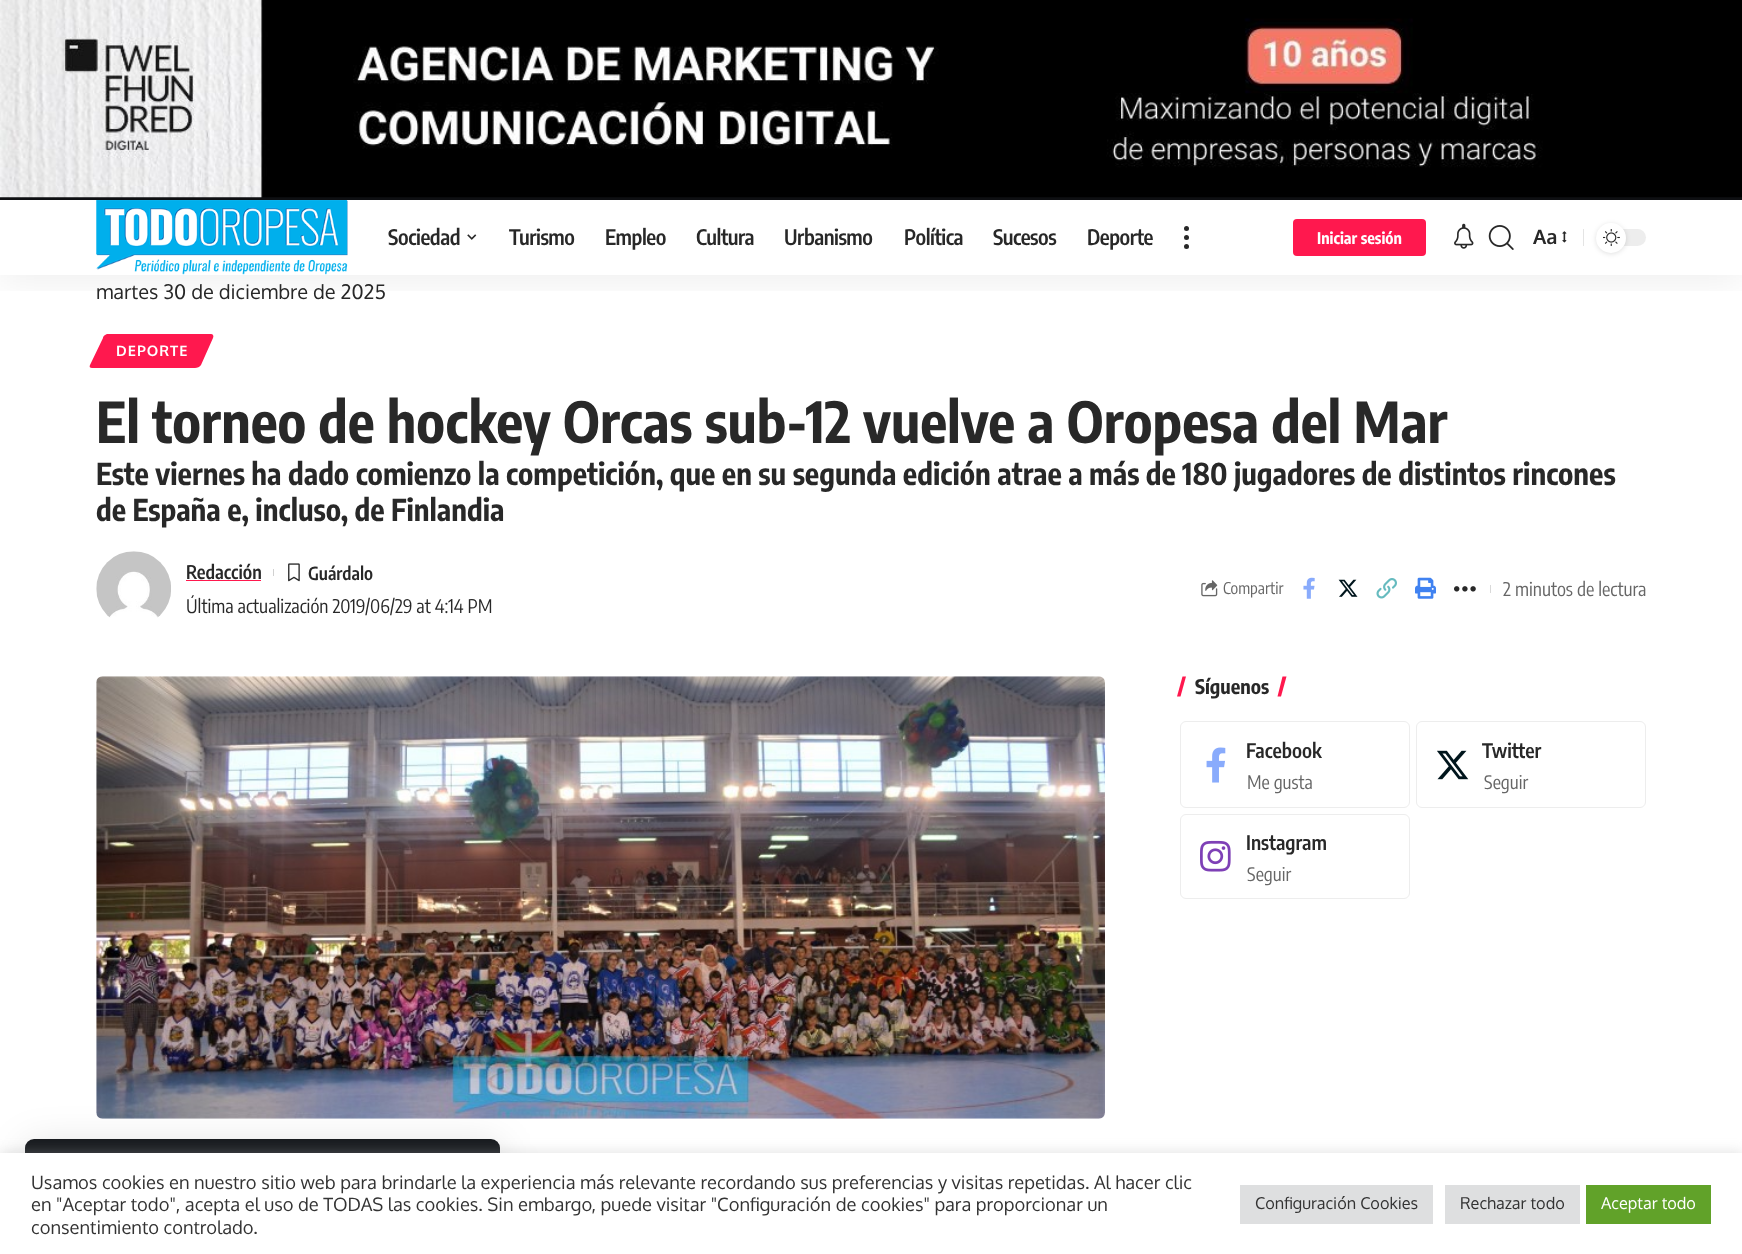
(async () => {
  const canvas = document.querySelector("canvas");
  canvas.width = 1742;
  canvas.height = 1254;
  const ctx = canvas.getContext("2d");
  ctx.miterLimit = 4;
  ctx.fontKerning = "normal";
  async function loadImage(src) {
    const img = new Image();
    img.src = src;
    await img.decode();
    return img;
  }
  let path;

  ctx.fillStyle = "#ffffff";
  ctx.fillRect(0, 0, 1742, 1254);
  ctx.fillStyle = "#0e0f12";
  ctx.fillRect(0, 197, 1742, 3);
  ctx.drawImage(await loadImage("img/1.png"), 0, 0, 1742, 198);
  ctx.fillStyle = "#ff184e";
  path = new Path2D("M108 334H211C213 334 214 336 213 338L201 365C200 367 197 368 195 368H92C90 368 89 367 90 365L103 338C103 336 106 334 108 334Z");
  ctx.fill(path);
  ctx.save();
  ctx.beginPath();
  ctx.rect(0, 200, 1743, 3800);
  ctx.clip();
  ctx.beginPath();
  ctx.rect(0, 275, 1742, 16);
  ctx.clip();
  ctx.fillStyle = "rgba(0, 0, 0, 0.07)";
  ctx.filter = "blur(19px)";
  ctx.beginPath();
  ctx.rect(0, 205, 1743, 75);
  ctx.fill();
  ctx.filter = "none";
  ctx.restore();
  ctx.drawImage(await loadImage("img/2.png"), 96, 200, 252, 75);
  ctx.drawImage(await loadImage("img/3.png"), 467, 234, 10, 6);
  ctx.fillStyle = "#282828";
  ctx.beginPath();
  ctx.arc(1186.5, 228.5, 2.5, 0, Math.PI * 2);
  ctx.fill();
  ctx.beginPath();
  ctx.arc(1186.5, 237.5, 2.5, 0, Math.PI * 2);
  ctx.fill();
  ctx.beginPath();
  ctx.arc(1186.5, 246.5, 2.5, 0, Math.PI * 2);
  ctx.fill();
  ctx.fillStyle = "#ff184e";
  ctx.beginPath();
  ctx.roundRect(1293, 219, 133, 37, 4);
  ctx.fill();
  ctx.drawImage(await loadImage("img/4.png"), 1454, 223, 20, 26);
  ctx.drawImage(await loadImage("img/5.png"), 1488, 225, 26, 25);
  ctx.drawImage(await loadImage("img/6.png"), 1562, 231, 5, 12);
  ctx.fillStyle = "#e4e4e4";
  ctx.fillRect(1583, 229, 1, 17);
  ctx.fillStyle = "#ededed";
  ctx.beginPath();
  ctx.roundRect(1596, 229, 50, 17, 8.5);
  ctx.fill();
  ctx.fillStyle = "rgba(0, 0, 0, 0.12)";
  ctx.filter = "blur(2.5px)";
  ctx.beginPath();
  ctx.roundRect(1596, 224, 30, 30, 15);
  ctx.fill();
  ctx.filter = "none";
  ctx.fillStyle = "#ffffff";
  ctx.beginPath();
  ctx.arc(1611, 238, 15, 0, Math.PI * 2);
  ctx.fill();
  ctx.drawImage(await loadImage("img/7.png"), 1603, 229, 17, 17);
  ctx.drawImage(await loadImage("img/16.png"), 96, 676, 1009, 443);
  ctx.fillStyle = "rgba(0, 0, 0, 0.12)";
  ctx.filter = "blur(19px)";
  ctx.beginPath();
  ctx.roundRect(25, 1144, 475, 91, 9);
  ctx.fill();
  ctx.filter = "none";
  ctx.fillStyle = "#191c20";
  ctx.beginPath();
  ctx.roundRect(25, 1139, 475, 91, 9);
  ctx.fill();
  ctx.drawImage(await loadImage("img/8.png"), 96, 551, 75, 67);
  ctx.fillStyle = "#ff184e";
  ctx.fillRect(186, 580, 75, 1);
  ctx.fillStyle = "#d1d1d1";
  ctx.fillRect(273, 569, 1, 7);
  ctx.drawImage(await loadImage("img/9.png"), 288, 563, 12, 19);
  ctx.drawImage(await loadImage("img/10.png"), 1201, 580, 17, 17);
  ctx.drawImage(await loadImage("img/11.png"), 1303, 577, 12, 22);
  ctx.drawImage(await loadImage("img/12.png"), 1338, 579, 20, 18);
  ctx.drawImage(await loadImage("img/13.png"), 1376, 578, 21, 21);
  ctx.drawImage(await loadImage("img/14.png"), 1415, 577, 21, 22);
  ctx.drawImage(await loadImage("img/15.png"), 1454, 586, 22, 6);
  ctx.fillStyle = "#d9d9d9";
  ctx.fillRect(1490, 585, 1, 8);
  ctx.fillStyle = "#ff184e";
  path = new Path2D("M1282.5 676.5H1286.5L1281 696.5H1277.5Z");
  ctx.fill(path);
  path = new Path2D("M1182.5 676.5H1186L1180.5 696.5H1177Z");
  ctx.fill(path);
  ctx.beginPath();
  ctx.roundRect(1180.5, 721.5, 229, 86, 5.5);
  ctx.strokeStyle = "#ededed";
  ctx.stroke();
  ctx.drawImage(await loadImage("img/17.png"), 1206, 747, 20, 36);
  ctx.beginPath();
  ctx.roundRect(1416.5, 721.5, 229, 86, 5.5);
  ctx.stroke();
  ctx.drawImage(await loadImage("img/18.png"), 1437, 750, 32, 30);
  ctx.beginPath();
  ctx.roundRect(1180.5, 814.5, 229, 84, 5.5);
  ctx.stroke();
  ctx.drawImage(await loadImage("img/19.png"), 1200, 840, 31, 32);
  ctx.fillStyle = "rgba(172, 171, 171, 0.3)";
  ctx.filter = "blur(6px)";
  ctx.beginPath();
  ctx.rect(0, 1151, 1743, 103);
  ctx.fill();
  ctx.filter = "none";
  for (const [x, y, w, h, color] of [
    [0, 1153, 1742, 101, "#ffffff"],
    [1240, 1185, 193, 39, "#dedfe0"],
    [1445, 1185, 135, 39, "#dedfe0"],
    [1586, 1185, 125, 39, "#61a229"],
  ]) {
    ctx.fillStyle = color;
    ctx.fillRect(x, y, w, h);
  }
  ctx.letterSpacing = "-0.5px";
  ctx.font = "600 21.25px Encode Sans Condensed";
  ctx.fillStyle = "#282828";
  for (const [text, x, y] of [
    ["Sociedad", 388, 245],
    ["Turismo", 509, 245],
    ["Empleo", 605, 245],
    ["Cultura", 696, 245],
    ["Urbanismo", 784, 245],
    ["Política", 904, 245],
    ["Sucesos", 993, 245],
    ["Deporte", 1087, 245],
  ]) {
    ctx.fillText(text, x, y);
  }
  ctx.letterSpacing = "0px";
  ctx.font = "bold 16px Encode Sans Condensed";
  ctx.fillStyle = "#ffffff";
  ctx.fillText("Iniciar sesión", 1317, 244);
  ctx.font = "bold 20px Oxygen";
  ctx.fillStyle = "#282828";
  ctx.fillText("Aa", 1533, 244);
  ctx.font = "20px Oxygen";
  ctx.fillText("martes 30 de diciembre de 2025", 96, 299);
  ctx.letterSpacing = "1px";
  ctx.font = "bold 14.5px Oxygen";
  ctx.fillStyle = "#ffffff";
  ctx.fillText("DEPORTE", 116, 356);
  ctx.letterSpacing = "0px";
  ctx.font = "bold 56.25px Encode Sans Condensed";
  ctx.fillStyle = "#282828";
  ctx.fillText("El torneo de hockey Orcas sub-12 vuelve a Oropesa del Mar", 96, 443);
  ctx.font = "bold 30px Encode Sans Condensed";
  ctx.fillText("Este viernes ha dado comienzo la competición, que en su segunda edición atrae a más de 180 jugadores de distintos rincones", 96, 485);
  ctx.fillText("de España e, incluso, de Finlandia", 96, 521);
  ctx.font = "600 18.75px Encode Sans Condensed";
  ctx.fillText("Redacción", 186, 579);
  ctx.font = "600 18px Encode Sans Condensed";
  ctx.fillText("Guárdalo", 308, 580);
  ctx.font = "18.75px Encode Sans Condensed";
  ctx.fillText("Última actualización 2019/06/29 at 4:14 PM", 186, 613);
  ctx.font = "16px Encode Sans Condensed";
  ctx.fillStyle = "#666666";
  ctx.fillText("Compartir", 1223, 594);
  ctx.font = "18.75px Encode Sans Condensed";
  ctx.fillText("2 minutos de lectura", 1503, 596);
  ctx.font = "bold 20px Encode Sans Condensed";
  ctx.fillStyle = "#282828";
  ctx.fillText("Síguenos", 1195, 694);
  ctx.font = "600 20px Encode Sans Condensed";
  ctx.fillText("Facebook", 1246, 758);
  ctx.font = "18.5px Encode Sans Condensed";
  ctx.fillStyle = "#666666";
  ctx.fillText("Me gusta", 1247, 789);
  ctx.font = "600 20px Encode Sans Condensed";
  ctx.fillStyle = "#282828";
  ctx.fillText("Twitter", 1482, 758);
  ctx.font = "18.5px Encode Sans Condensed";
  ctx.fillStyle = "#666666";
  ctx.fillText("Seguir", 1484, 789);
  ctx.font = "600 20px Encode Sans Condensed";
  ctx.fillStyle = "#282828";
  ctx.fillText("Instagram", 1246, 850);
  ctx.font = "18.5px Encode Sans Condensed";
  ctx.fillStyle = "#666666";
  ctx.fillText("Seguir", 1247, 881);
  ctx.font = "18.33px Oxygen";
  ctx.fillStyle = "#333333";
  for (const [text, x, y] of [
    ["Usamos cookies en nuestro sitio web para brindarle la experiencia más relevante recordando sus preferencias y visitas repetidas. Al hacer clic", 31, 1189],
    ["en \"Aceptar todo\", acepta el uso de TODAS las cookies. Sin embargo, puede visitar \"Configuración de cookies\" para proporcionar un", 31, 1211],
    ["consentimiento controlado.", 31, 1234],
  ]) {
    ctx.fillText(text, x, y);
  }
  ctx.font = "16.25px Oxygen";
  ctx.fillText("Configuración Cookies", 1255, 1209);
  ctx.fillText("Rechazar todo", 1460, 1209);
  ctx.fillStyle = "#ffffff";
  ctx.fillText("Aceptar todo", 1601, 1209);
})();
